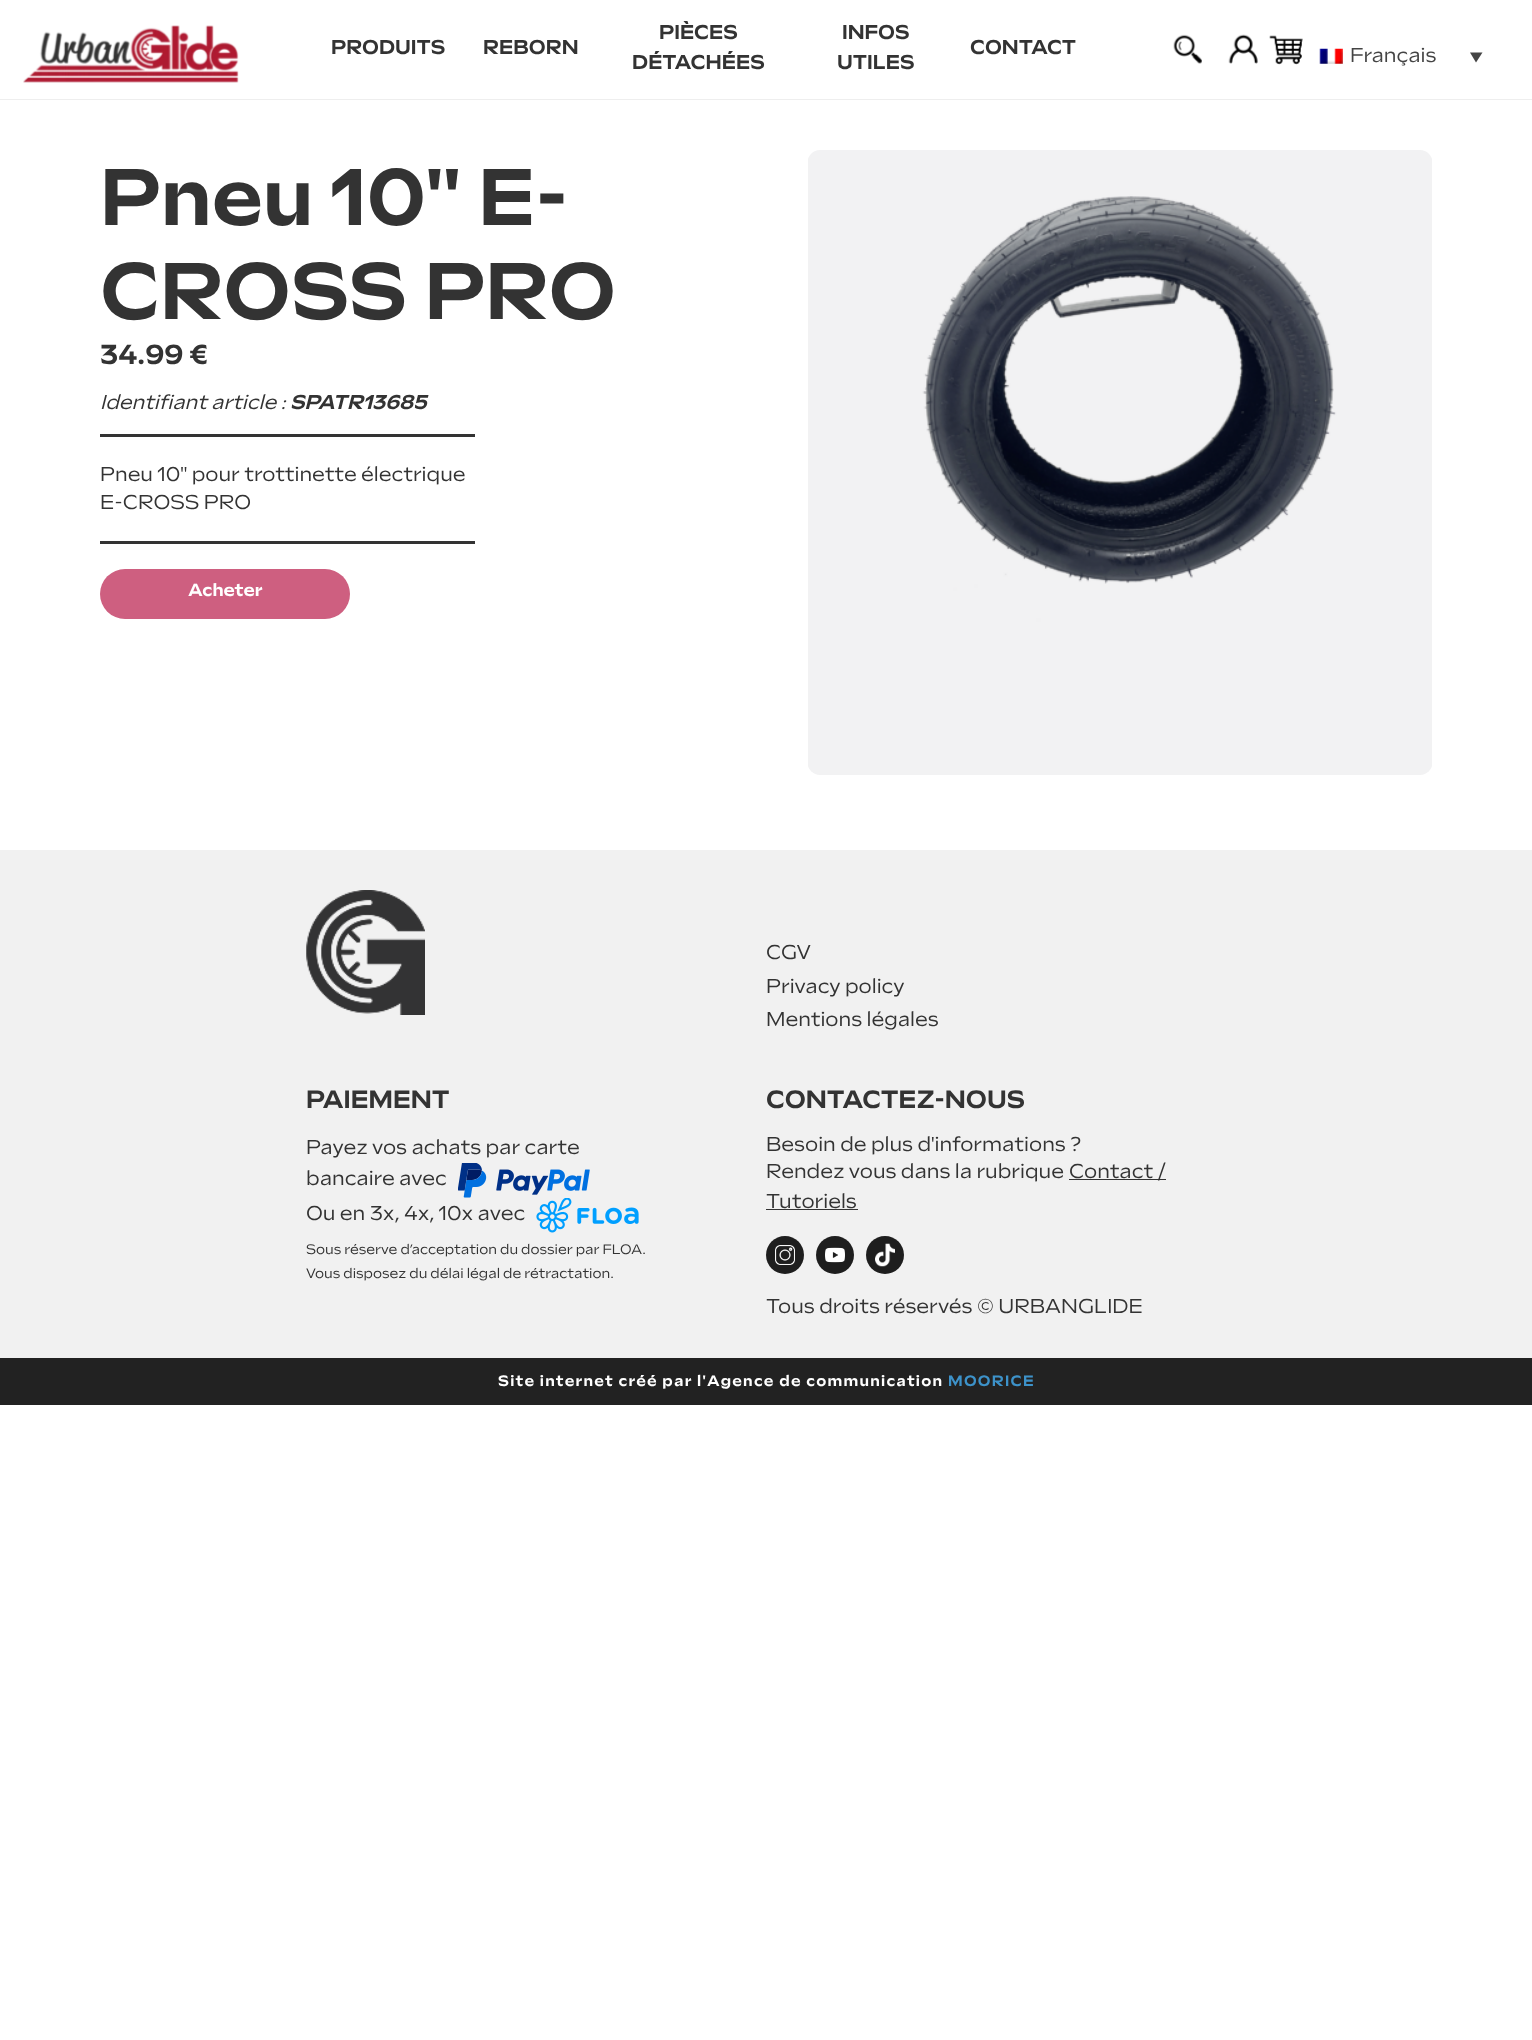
(async () => {
  const canvas = document.querySelector("canvas");
  canvas.width = 1532;
  canvas.height = 2040;
  const ctx = canvas.getContext("2d");
  ctx.miterLimit = 4;
  ctx.fontKerning = "normal";
  async function loadImage(src) {
    const img = new Image();
    img.src = src;
    await img.decode();
    return img;
  }
  let path;

  ctx.fillStyle = "#ffffff";
  ctx.fillRect(0, 0, 1532, 2040);
  ctx.fillStyle = "#eeeeee";
  ctx.fillRect(0, 99, 1532, 1);
  ctx.drawImage(await loadImage("img/1.png"), 23, 25, 216, 58);
  ctx.drawImage(await loadImage("img/2.png"), 1173, 34, 29, 30);
  ctx.drawImage(await loadImage("img/3.png"), 1228, 34, 30, 30);
  ctx.drawImage(await loadImage("img/4.png"), 1269, 35, 34, 30);
  ctx.drawImage(await loadImage("img/5.png"), 1319, 48, 24, 16);
  ctx.fillStyle = "#444444";
  path = new Path2D("M1470 52.5H1482.5L1476 62.5Z");
  ctx.fill(path);
  ctx.fillStyle = "#333333";
  ctx.fillRect(100, 434, 375, 3);
  ctx.fillRect(100, 541, 375, 3);
  ctx.fillStyle = "#ce5f80";
  ctx.beginPath();
  ctx.roundRect(100, 569, 250, 50, 25);
  ctx.fill();
  ctx.drawImage(await loadImage("img/6.png"), 808, 150, 624, 625);
  ctx.fillStyle = "#f1f1f1";
  ctx.fillRect(0, 850, 1532, 508);
  ctx.drawImage(await loadImage("img/7.png"), 306, 890, 119, 125);
  ctx.drawImage(await loadImage("img/8.png"), 458, 1163, 132, 35);
  ctx.drawImage(await loadImage("img/9.png"), 536, 1198, 103, 35);
  ctx.fillStyle = "#333333";
  ctx.fillRect(1069, 1179, 97, 1);
  ctx.fillRect(766, 1209, 92, 1);
  ctx.fillStyle = "#1e1e1e";
  ctx.beginPath();
  ctx.arc(785, 1255, 19, 0, Math.PI * 2);
  ctx.fill();
  ctx.drawImage(await loadImage("img/10.png"), 775, 1245, 20, 20);
  ctx.beginPath();
  ctx.arc(835, 1255, 19, 0, Math.PI * 2);
  ctx.fill();
  ctx.drawImage(await loadImage("img/11.png"), 825, 1247, 20, 16);
  ctx.beginPath();
  ctx.arc(885, 1255, 19, 0, Math.PI * 2);
  ctx.fill();
  ctx.drawImage(await loadImage("img/12.png"), 875, 1243, 20, 24);
  ctx.fillStyle = "#222222";
  ctx.fillRect(0, 1358, 1532, 47);
  ctx.font = "bold 20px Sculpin";
  ctx.fillStyle = "#333333";
  for (const [text, x, y] of [
    ["PRODUITS", 331, 54],
    ["REBORN", 483, 54],
    ["PIÈCES", 659, 39],
    ["DÉTACHÉES", 632, 69],
    ["INFOS", 842, 39],
    ["UTILES", 837, 69],
    ["CONTACT", 970, 54],
  ]) {
    ctx.fillText(text, x, y);
  }
  ctx.font = "20px Sculpin";
  ctx.fillStyle = "#444444";
  ctx.fillText("Français", 1350, 62);
  ctx.font = "bold 80px Sculpin";
  ctx.fillStyle = "#333333";
  ctx.fillText("Pneu 10'' E-", 100, 225);
  ctx.fillText("CROSS PRO", 100, 319);
  ctx.font = "bold 27.5px Sculpin";
  ctx.fillText("34.99 €", 100, 364);
  ctx.font = "italic 20px Sculpin";
  ctx.fillText("Identifiant article :", 100, 409);
  ctx.font = "italic bold 20px Sculpin";
  ctx.fillText("SPATR13685", 290, 409);
  ctx.font = "20px Sculpin";
  ctx.fillText("Pneu 10'' pour trottinette électrique", 100, 481);
  ctx.fillText("E-CROSS PRO", 100, 509);
  ctx.font = "bold 17.5px Sculpin";
  ctx.fillStyle = "#ffffff";
  ctx.fillText("Acheter", 188, 596);
  ctx.font = "20px Sculpin";
  ctx.fillStyle = "#333333";
  for (const [text, x, y] of [
    ["CGV", 766, 959],
    ["Privacy policy", 766, 993],
    ["Mentions légales", 766, 1026],
  ]) {
    ctx.fillText(text, x, y);
  }
  ctx.font = "bold 25px Sculpin";
  ctx.fillText("PAIEMENT", 306, 1108);
  ctx.font = "20px Sculpin";
  for (const [text, x, y] of [
    ["Payez vos achats par carte", 306, 1154],
    ["bancaire avec", 306, 1185],
    ["Ou en 3x, 4x, 10x avec", 306, 1220],
  ]) {
    ctx.fillText(text, x, y);
  }
  ctx.font = "13.75px Sculpin";
  ctx.fillText("Sous réserve d’acceptation du dossier par FLOA.", 306, 1254);
  ctx.fillText("Vous disposez du délai légal de rétractation.", 306, 1278);
  ctx.font = "bold 25px Sculpin";
  ctx.fillText("CONTACTEZ-NOUS", 766, 1108);
  ctx.font = "20px Sculpin";
  for (const [text, x, y] of [
    ["Besoin de plus d'informations ?", 766, 1151],
    ["Rendez vous dans la rubrique", 766, 1178],
    ["Contact /", 1069, 1178],
    ["Tutoriels", 766, 1208],
    ["Tous droits réservés © URBANGLIDE", 766, 1313],
  ]) {
    ctx.fillText(text, x, y);
  }
  ctx.letterSpacing = "1.25px";
  ctx.font = "bold 15px Sculpin";
  ctx.fillStyle = "#ffffff";
  ctx.fillText("Site internet créé par l'Agence de communication", 498, 1386);
  ctx.fillStyle = "#3d92c9";
  ctx.fillText("MOORICE", 948, 1386);
})();
